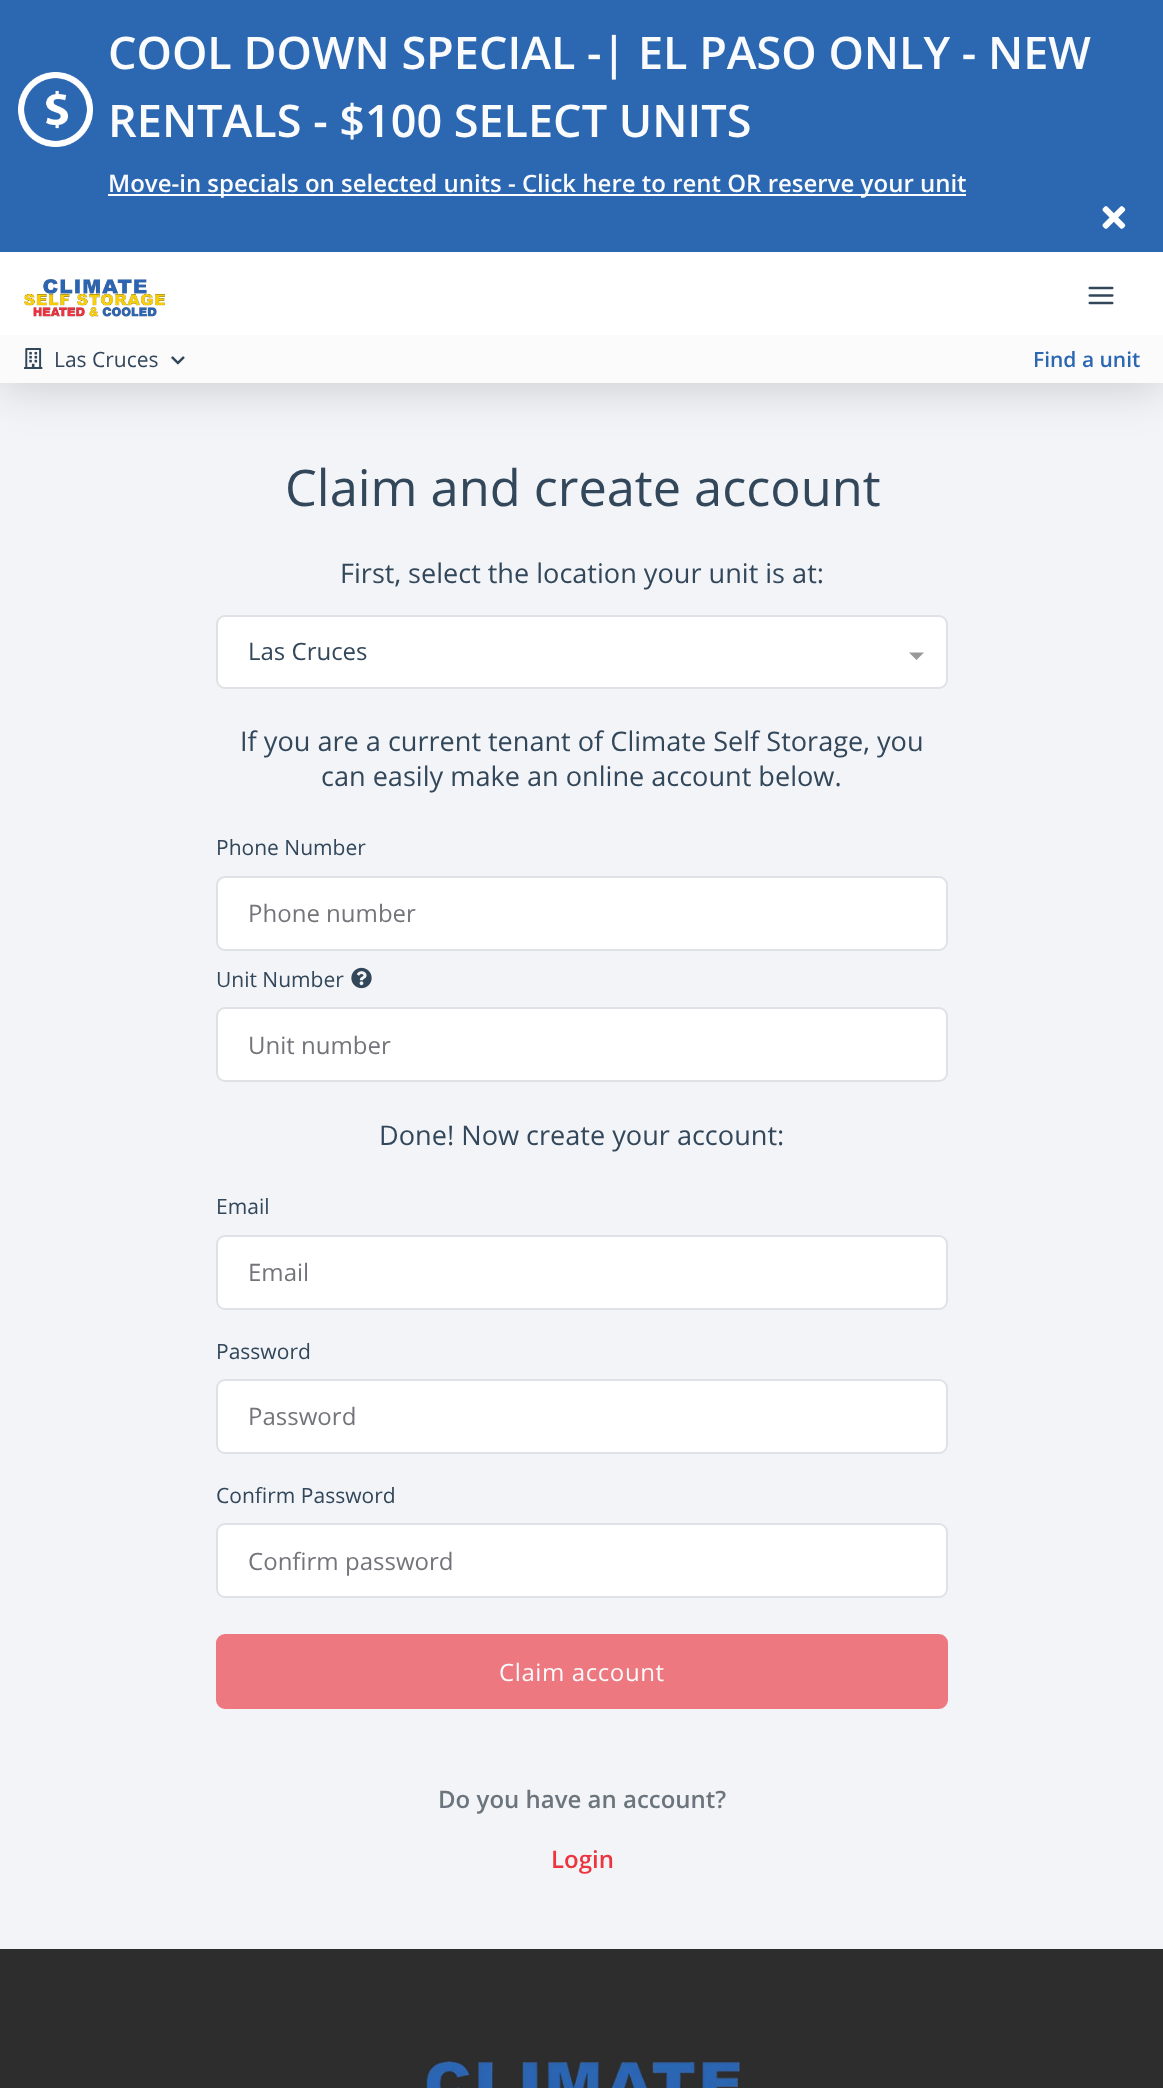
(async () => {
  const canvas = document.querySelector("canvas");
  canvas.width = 1163;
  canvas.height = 2088;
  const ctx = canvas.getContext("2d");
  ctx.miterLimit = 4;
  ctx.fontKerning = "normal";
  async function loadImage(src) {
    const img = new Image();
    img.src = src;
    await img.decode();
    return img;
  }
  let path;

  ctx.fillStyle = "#f2f4f7";
  ctx.fillRect(0, 0, 1163, 2088);
  ctx.save();
  path = new Path2D("M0 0H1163V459H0ZM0 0H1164V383H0Z");
  ctx.clip(path, "evenodd");
  ctx.fillStyle = "rgba(0, 0, 0, 0.17)";
  ctx.filter = "blur(24px)";
  ctx.beginPath();
  ctx.rect(0, 3, 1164, 383);
  ctx.fill();
  ctx.filter = "none";
  ctx.restore();
  ctx.fillStyle = "#2c67b2";
  ctx.fillRect(0, 0, 1163, 252);
  ctx.drawImage(await loadImage("img/1.png"), 18, 72, 75, 75);
  ctx.fillStyle = "#ffffff";
  ctx.fillRect(108, 194, 858, 2);
  ctx.drawImage(await loadImage("img/2.png"), 1102, 206, 24, 23);
  ctx.fillRect(0, 252, 1163, 83);
  ctx.drawImage(await loadImage("img/3.png"), 24, 279, 141, 38);
  ctx.drawImage(await loadImage("img/4.png"), 1088, 286, 26, 19);
  ctx.fillStyle = "rgba(252, 251, 252, 0.99)";
  ctx.fillRect(0, 335, 1163, 48);
  ctx.drawImage(await loadImage("img/5.png"), 24, 348, 19, 21);
  ctx.drawImage(await loadImage("img/6.png"), 171, 356, 14, 9);
  ctx.fillStyle = "#ffffff";
  ctx.beginPath();
  ctx.roundRect(217, 616, 730, 72, 8);
  ctx.fill();
  ctx.strokeStyle = "#dee2e6";
  ctx.lineWidth = 2;
  ctx.stroke();
  ctx.fillStyle = "#999999";
  path = new Path2D("M909 652.5H924L916.5 660Z");
  ctx.fill(path);
  ctx.fillStyle = "#ffffff";
  ctx.beginPath();
  ctx.roundRect(217, 877, 730, 73, 8);
  ctx.fill();
  ctx.stroke();
  ctx.drawImage(await loadImage("img/7.png"), 351, 967, 21, 22);
  ctx.beginPath();
  ctx.roundRect(217, 1008, 730, 73, 8);
  ctx.fill();
  ctx.stroke();
  ctx.beginPath();
  ctx.roundRect(217, 1236, 730, 73, 8);
  ctx.fill();
  ctx.stroke();
  ctx.beginPath();
  ctx.roundRect(217, 1380, 730, 73, 8);
  ctx.fill();
  ctx.stroke();
  ctx.beginPath();
  ctx.roundRect(217, 1524, 730, 73, 8);
  ctx.fill();
  ctx.stroke();
  ctx.fillStyle = "#ee787f";
  ctx.beginPath();
  ctx.roundRect(217, 1635, 730, 73, 8);
  ctx.fill();
  ctx.strokeStyle = "#ee787f";
  ctx.stroke();
  ctx.fillStyle = "#2d2d2d";
  ctx.fillRect(0, 1949, 1163, 139);
  ctx.drawImage(await loadImage("img/8.png"), 426, 2061, 314, 27);
  ctx.font = "600 45px Open Sans";
  ctx.fillStyle = "#fafbfc";
  ctx.fillText("COOL DOWN SPECIAL -| EL PASO ONLY - NEW", 108, 69);
  ctx.fillText("RENTALS - $100 SELECT UNITS", 108, 137);
  ctx.font = "600 24px Open Sans";
  ctx.fillText("Move-in specials on selected units - Click here to rent OR reserve your unit", 108, 192);
  ctx.font = "21px Open Sans";
  ctx.fillStyle = "#33475b";
  ctx.fillText("Las Cruces", 54, 367);
  ctx.font = "600 21px Open Sans";
  ctx.fillStyle = "#2c67b2";
  ctx.fillText("Find a unit", 1033, 367);
  ctx.font = "50.5px Open Sans";
  ctx.fillStyle = "#33475b";
  ctx.fillText("Claim and create account", 285, 506);
  ctx.font = "27.1px Open Sans";
  ctx.fillText("First, select the location your unit is at:", 340, 583);
  ctx.font = "24px Open Sans";
  ctx.fillText("Las Cruces", 248, 660);
  ctx.font = "27.1px Open Sans";
  ctx.fillText("If you are a current tenant of Climate Self Storage, you", 240, 751);
  ctx.fillText("can easily make an online account below.", 321, 786);
  ctx.font = "21px Open Sans";
  ctx.fillText("Phone Number", 216, 855);
  ctx.font = "24px Open Sans";
  ctx.fillStyle = "#74757a";
  ctx.fillText("Phone number", 248, 922);
  ctx.font = "21px Open Sans";
  ctx.fillStyle = "#33475b";
  ctx.fillText("Unit Number", 216, 987);
  ctx.font = "24px Open Sans";
  ctx.fillStyle = "#74757a";
  ctx.fillText("Unit number", 248, 1054);
  ctx.font = "27.1px Open Sans";
  ctx.fillStyle = "#33475b";
  ctx.fillText("Done! Now create your account:", 379, 1145);
  ctx.font = "21px Open Sans";
  ctx.fillText("Email", 216, 1214);
  ctx.font = "24px Open Sans";
  ctx.fillStyle = "#74757a";
  ctx.fillText("Email", 248, 1281);
  ctx.font = "21px Open Sans";
  ctx.fillStyle = "#33475b";
  ctx.fillText("Password", 216, 1359);
  ctx.font = "24px Open Sans";
  ctx.fillStyle = "#74757a";
  ctx.fillText("Password", 248, 1425);
  ctx.font = "21px Open Sans";
  ctx.fillStyle = "#33475b";
  ctx.fillText("Confirm Password", 216, 1503);
  ctx.font = "24px Open Sans";
  ctx.fillStyle = "#74757a";
  ctx.fillText("Confirm password", 248, 1570);
  ctx.letterSpacing = "0.6px";
  ctx.fillStyle = "#fafbfc";
  ctx.fillText("Claim account", 499, 1681);
  ctx.letterSpacing = "0px";
  ctx.font = "600 24px Open Sans";
  ctx.fillStyle = "#6c757d";
  ctx.fillText("Do you have an account?", 438, 1808);
  ctx.fillStyle = "#ec353f";
  ctx.fillText("Login", 551, 1868);
})();
